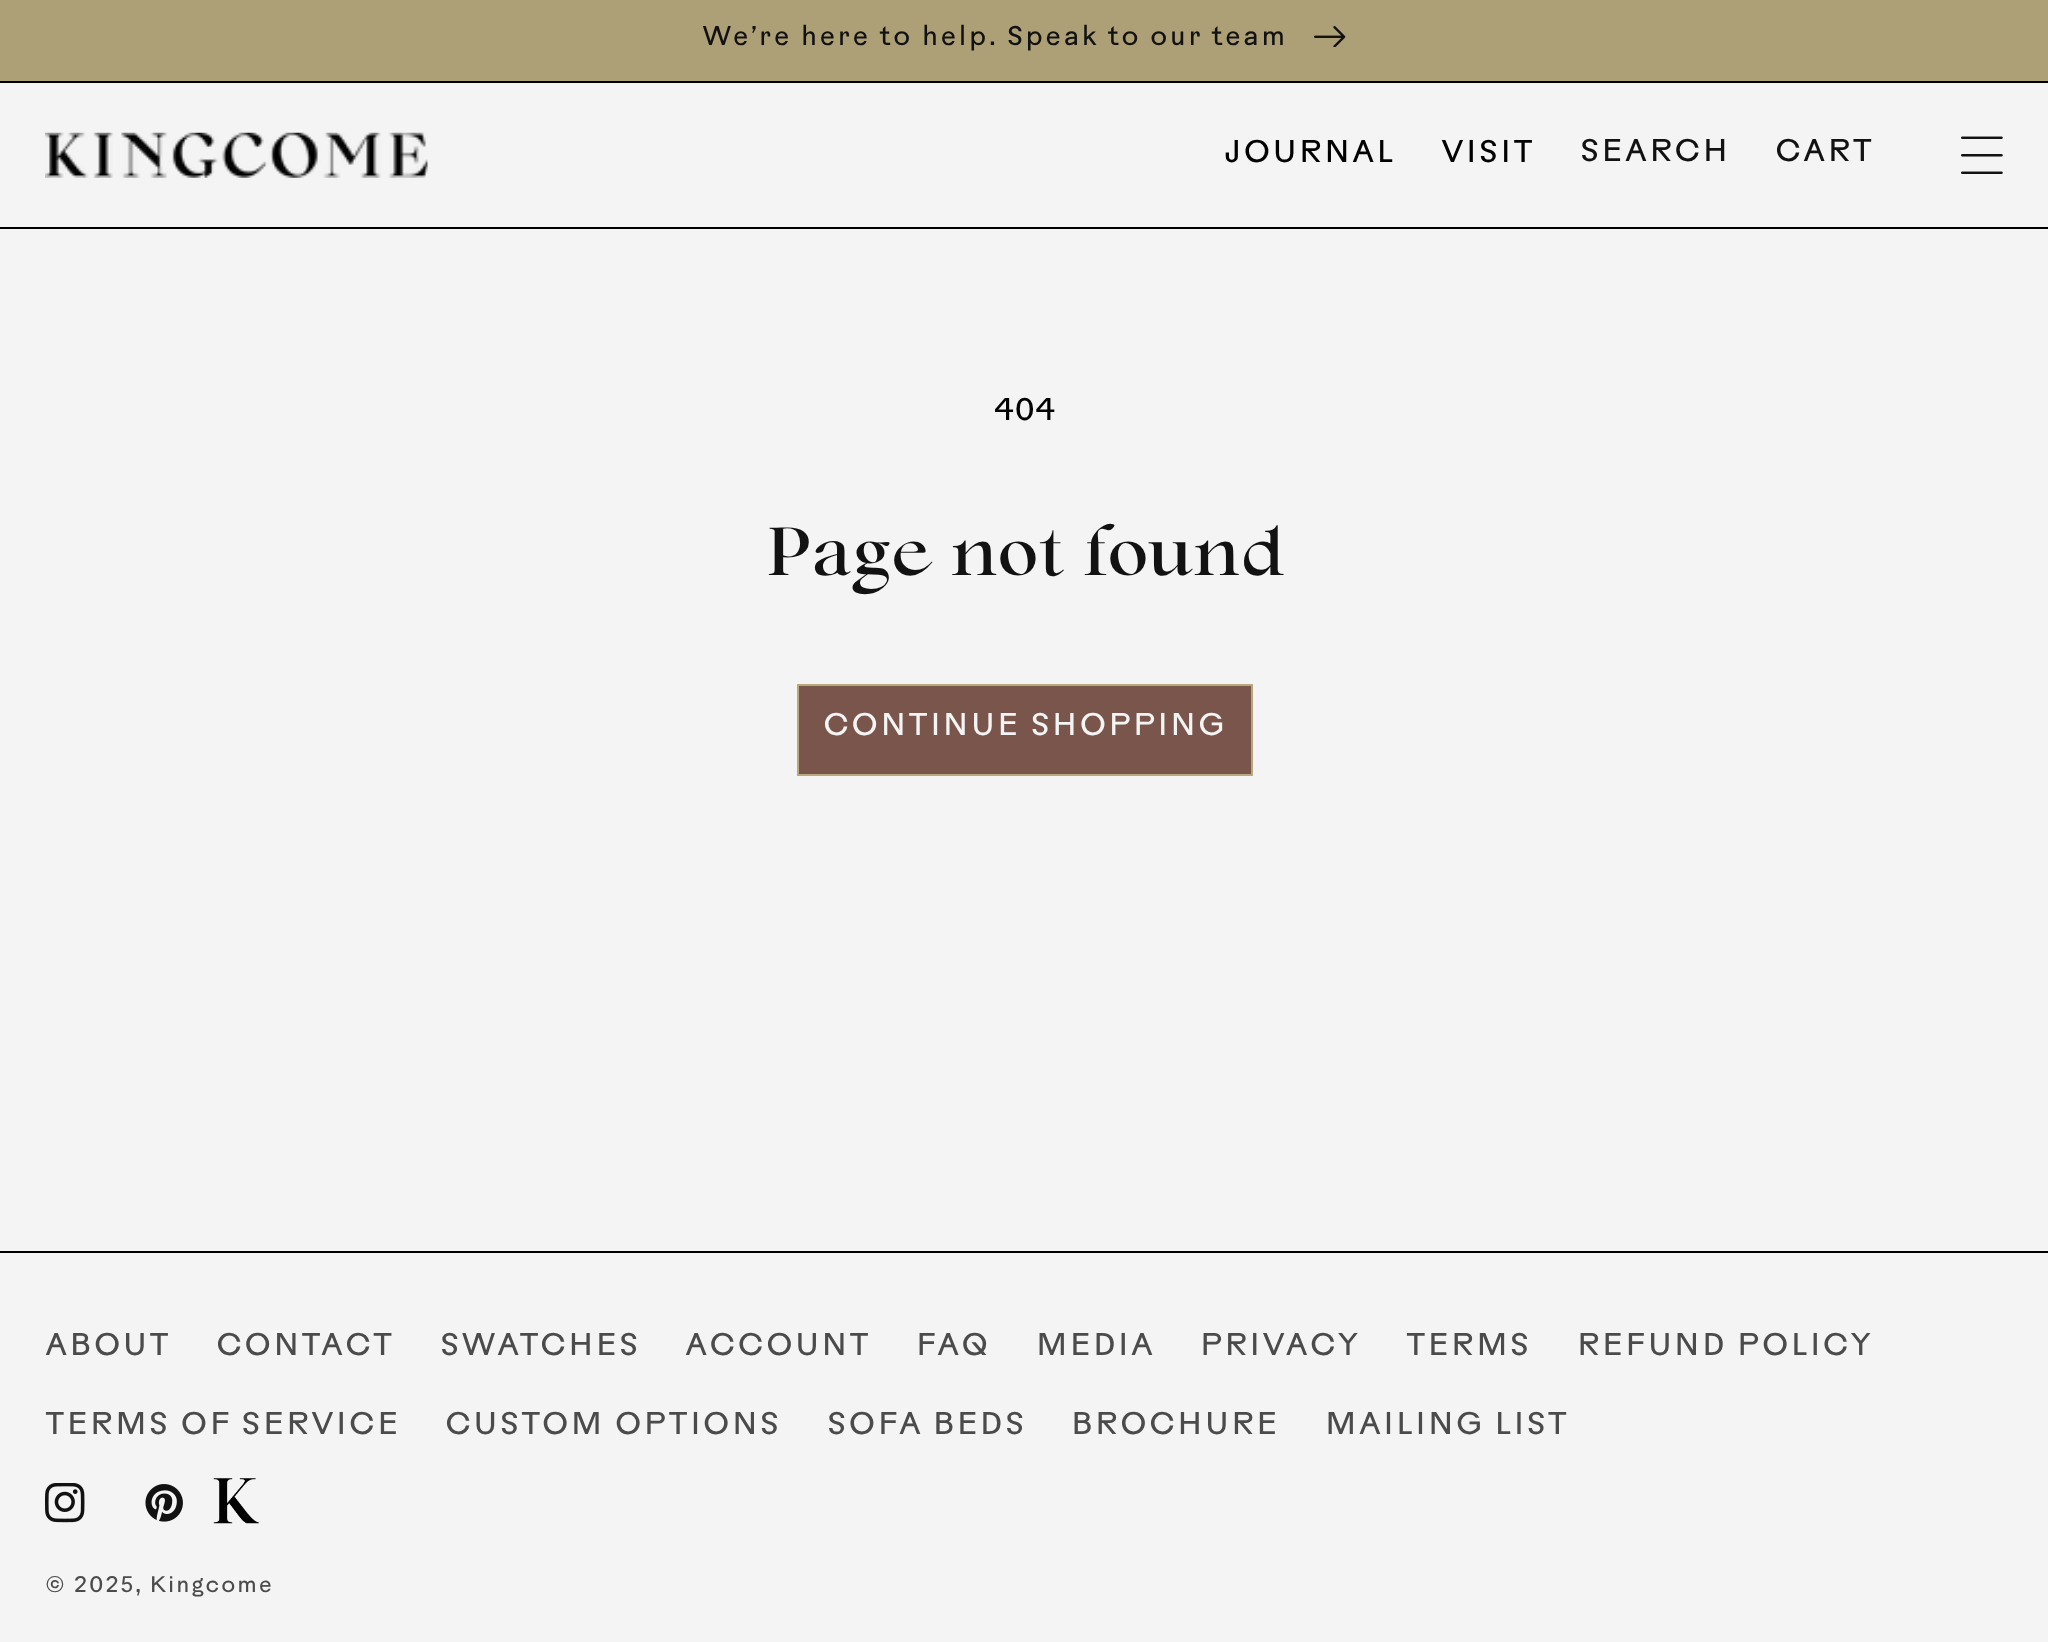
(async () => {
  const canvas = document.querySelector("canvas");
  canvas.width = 2048;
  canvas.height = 1642;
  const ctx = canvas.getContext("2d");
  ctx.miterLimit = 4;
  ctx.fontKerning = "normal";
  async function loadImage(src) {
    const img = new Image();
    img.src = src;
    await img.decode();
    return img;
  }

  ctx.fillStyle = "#f4f4f4";
  ctx.fillRect(0, 0, 2048, 1642);
  ctx.fillStyle = "#000000";
  ctx.fillRect(0, 81, 2048, 2);
  ctx.fillStyle = "#aea076";
  ctx.fillRect(0, 0, 2048, 81);
  ctx.drawImage(await loadImage("img/1.png"), 1314, 26, 32, 21);
  ctx.fillStyle = "#000000";
  ctx.fillRect(0, 227, 2048, 2);
  ctx.drawImage(await loadImage("img/2.png"), 45, 132, 383, 46);
  ctx.drawImage(await loadImage("img/3.png"), 1961, 136, 42, 38);
  ctx.strokeStyle = "#b7a97d";
  ctx.lineWidth = 2;
  ctx.strokeRect(798, 685, 454, 90);
  ctx.fillStyle = "#79554b";
  ctx.fillRect(799, 686, 452, 88);
  ctx.fillStyle = "#000000";
  ctx.fillRect(0, 1251, 2048, 2);
  ctx.drawImage(await loadImage("img/4.png"), 45, 1483, 40, 40);
  ctx.drawImage(await loadImage("img/5.png"), 145, 1484, 38, 38);
  ctx.drawImage(await loadImage("img/6.png"), 213, 1478, 46, 46);
  ctx.letterSpacing = "2.25px";
  ctx.font = "27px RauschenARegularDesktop";
  ctx.fillStyle = "#121212";
  ctx.fillText("We’re here to help. Speak to our team", 702, 45);
  ctx.font = "31.5px RauschenARegularDesktop";
  ctx.fillStyle = "#000000";
  ctx.fillText("JOURNAL", 1224, 162);
  ctx.fillText("VISIT", 1441, 162);
  ctx.fillStyle = "#121212";
  ctx.fillText("SEARCH", 1580, 161);
  ctx.fillText("CART", 1775, 161);
  ctx.letterSpacing = "0px";
  ctx.fillStyle = "#000000";
  ctx.fillText("404", 994, 420);
  ctx.letterSpacing = "1.4px";
  ctx.font = "600 67.5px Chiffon";
  ctx.fillStyle = "#121212";
  ctx.fillText("Page not found", 766, 575);
  ctx.letterSpacing = "2.25px";
  ctx.font = "31.5px RauschenARegularDesktop";
  ctx.fillStyle = "#f4f4f4";
  ctx.fillText("CONTINUE SHOPPING", 823, 735);
  ctx.fillStyle = "#4b4b4b";
  for (const [text, x, y] of [
    ["ABOUT", 45, 1355],
    ["CONTACT", 216, 1355],
    ["SWATCHES", 440, 1355],
    ["ACCOUNT", 685, 1355],
    ["FAQ", 916, 1355],
    ["MEDIA", 1036, 1355],
    ["PRIVACY", 1200, 1355],
    ["TERMS", 1406, 1355],
    ["REFUND POLICY", 1577, 1355],
    ["TERMS OF SERVICE", 45, 1434],
    ["CUSTOM OPTIONS", 445, 1434],
    ["SOFA BEDS", 827, 1434],
    ["BROCHURE", 1071, 1434],
    ["MAILING LIST", 1325, 1434],
  ]) {
    ctx.fillText(text, x, y);
  }
  ctx.letterSpacing = "1.6px";
  ctx.font = "22.5px RauschenARegularDesktop";
  ctx.fillText("© 2025, Kingcome", 45, 1592);
})();
